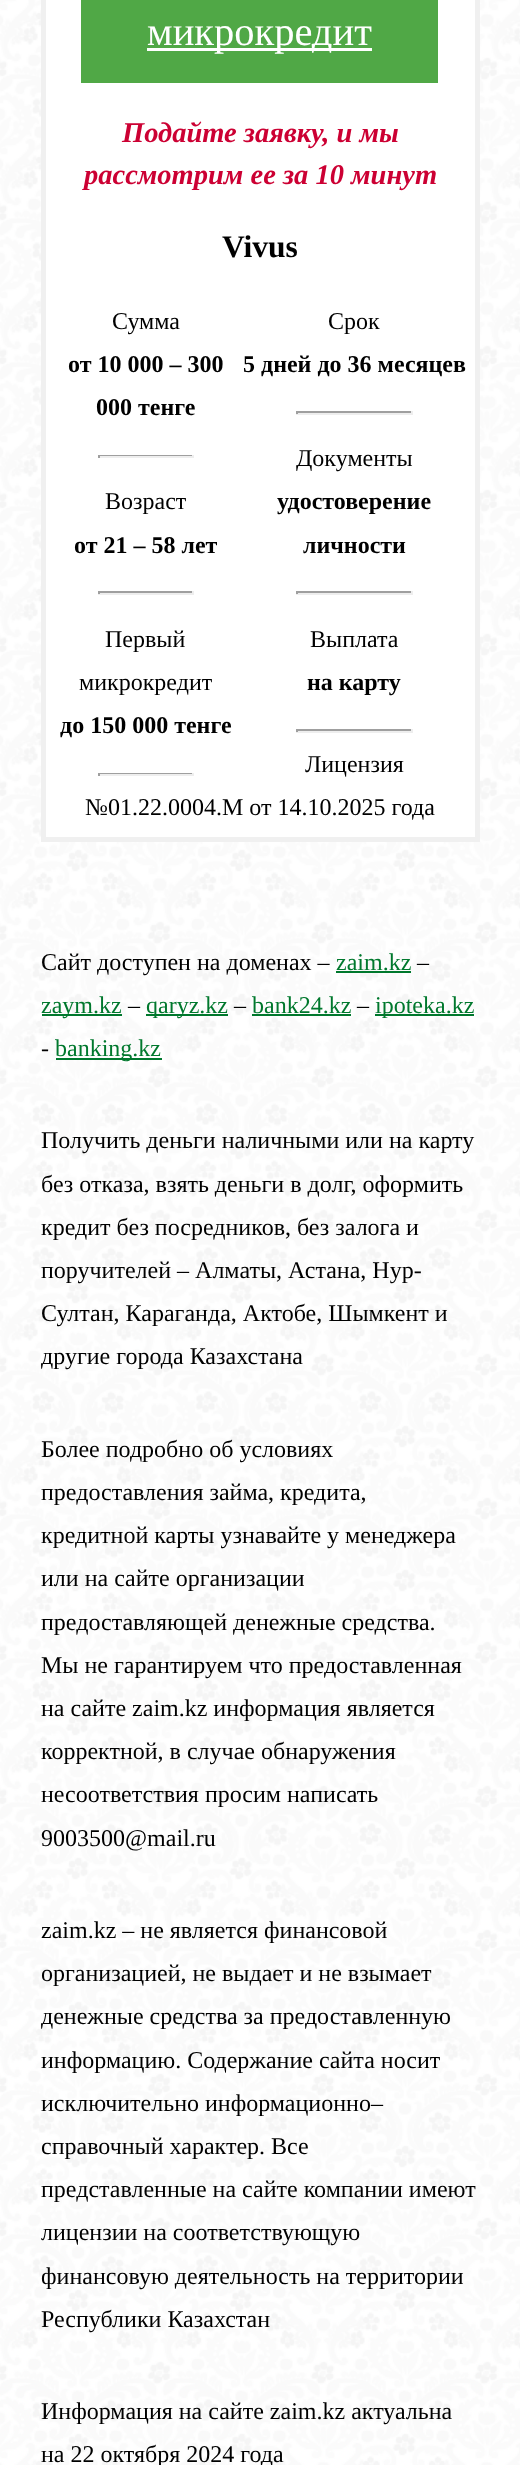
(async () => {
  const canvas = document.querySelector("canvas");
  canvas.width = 520;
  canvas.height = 2465;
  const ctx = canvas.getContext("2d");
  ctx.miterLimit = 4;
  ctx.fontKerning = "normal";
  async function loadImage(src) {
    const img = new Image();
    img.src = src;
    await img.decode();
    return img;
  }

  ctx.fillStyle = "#ffffff";
  ctx.fillRect(0, 0, 520, 2465);
  ctx.drawImage(await loadImage("img/1.png"), 0, 0, 520, 2465);
  ctx.beginPath();
  ctx.rect(43.5, -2.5, 434, 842);
  ctx.fill();
  ctx.strokeStyle = "#f0f0f0";
  ctx.lineWidth = 5;
  ctx.stroke();
  for (const [x, y, w, h, color] of [
    [81, 0, 357, 83, "#50a846"],
    [147, 48, 225, 3, "#ffffff"],
    [98, 455, 96, 1, "#9f9f9f"],
    [192, 455, 2, 3, "#eeeeee"],
    [98, 456, 96, 2, "#eeeeee"],
    [98, 455, 2, 3, "#9f9f9f"],
    [98, 591, 96, 2, "#9f9f9f"],
    [192, 591, 2, 3, "#eeeeee"],
    [98, 593, 96, 2, "#eeeeee"],
    [98, 591, 2, 3, "#9f9f9f"],
    [98, 773, 96, 1, "#9f9f9f"],
    [192, 773, 2, 3, "#eeeeee"],
    [98, 774, 96, 2, "#eeeeee"],
    [98, 773, 2, 3, "#9f9f9f"],
    [296, 411, 117, 2, "#9f9f9f"],
    [411, 411, 2, 3, "#eeeeee"],
    [296, 413, 117, 2, "#eeeeee"],
    [296, 411, 2, 3, "#9f9f9f"],
    [296, 591, 117, 2, "#9f9f9f"],
    [411, 591, 2, 3, "#eeeeee"],
    [296, 593, 117, 2, "#eeeeee"],
    [296, 591, 2, 3, "#9f9f9f"],
    [296, 729, 117, 2, "#9f9f9f"],
    [411, 729, 2, 3, "#eeeeee"],
    [296, 731, 117, 2, "#eeeeee"],
    [296, 729, 2, 3, "#9f9f9f"],
    [336, 971, 75, 2, "#00782d"],
    [42, 1014, 80, 2, "#00782d"],
    [146, 1014, 82, 2, "#00782d"],
    [252, 1014, 99, 2, "#00782d"],
    [375, 1014, 99, 2, "#00782d"],
    [56, 1058, 106, 2, "#00782d"],
  ]) {
    ctx.fillStyle = color;
    ctx.fillRect(x, y, w, h);
  }
  ctx.font = "40.5px Liberation Serif";
  ctx.fillStyle = "#ffffff";
  ctx.fillText("микрокредит", 147, 45);
  ctx.font = "italic bold 28.5px Liberation Serif";
  ctx.fillStyle = "#cc0033";
  ctx.fillText("Подайте заявку, и мы", 122, 142);
  ctx.fillText("рассмотрим ее за 10 минут", 84, 184);
  ctx.font = "bold 31.5px Liberation Serif";
  ctx.fillStyle = "#000000";
  ctx.fillText("Vivus", 222, 257);
  ctx.font = "24px Liberation Serif";
  ctx.fillText("Сумма", 112, 329);
  ctx.font = "bold 24px Liberation Serif";
  ctx.fillText("от 10 000 – 300", 68, 372);
  ctx.fillText("000 тенге", 96, 415);
  ctx.font = "24px Liberation Serif";
  ctx.fillText("Возраст", 105, 509);
  ctx.font = "bold 24px Liberation Serif";
  ctx.fillText("от 21 – 58 лет", 74, 553);
  ctx.font = "24px Liberation Serif";
  ctx.fillText("Первый", 105, 647);
  ctx.fillText("микрокредит", 79, 690);
  ctx.font = "bold 24px Liberation Serif";
  ctx.fillText("до 150 000 тенге", 60, 733);
  ctx.font = "24px Liberation Serif";
  ctx.fillText("Срок", 328, 329);
  ctx.font = "bold 24px Liberation Serif";
  ctx.fillText("5 дней до 36 месяцев", 243, 372);
  ctx.font = "24px Liberation Serif";
  ctx.fillText("Документы", 296, 466);
  ctx.font = "bold 24px Liberation Serif";
  ctx.fillText("удостоверение", 277, 509);
  ctx.fillText("личности", 303, 553);
  ctx.font = "24px Liberation Serif";
  ctx.fillText("Выплата", 310, 647);
  ctx.font = "bold 24px Liberation Serif";
  ctx.fillText("на карту", 307, 690);
  ctx.font = "24px Liberation Serif";
  for (const [text, x, y] of [
    ["Лицензия", 305, 772],
    ["№01.22.0004.M от 14.10.2025 года", 85, 815],
    ["Сайт доступен на доменах –", 41, 970],
  ]) {
    ctx.fillText(text, x, y);
  }
  ctx.fillStyle = "#00782d";
  ctx.fillText("zaim.kz", 336, 970);
  ctx.fillStyle = "#000000";
  ctx.fillText("–", 417, 970);
  ctx.fillStyle = "#00782d";
  ctx.fillText("zaym.kz", 41, 1013);
  ctx.fillStyle = "#000000";
  ctx.fillText("–", 128, 1013);
  ctx.fillStyle = "#00782d";
  ctx.fillText("qaryz.kz", 146, 1013);
  ctx.fillStyle = "#000000";
  ctx.fillText("–", 234, 1013);
  ctx.fillStyle = "#00782d";
  ctx.fillText("bank24.kz", 252, 1013);
  ctx.fillStyle = "#000000";
  ctx.fillText("–", 357, 1013);
  ctx.fillStyle = "#00782d";
  ctx.fillText("ipoteka.kz", 375, 1013);
  ctx.fillStyle = "#000000";
  ctx.fillText("-", 41, 1056);
  ctx.fillStyle = "#00782d";
  ctx.fillText("banking.kz", 55, 1056);
  ctx.fillStyle = "#000000";
  for (const [text, x, y] of [
    ["Получить деньги наличными или на карту", 41, 1148],
    ["без отказа, взять деньги в долг, оформить", 41, 1192],
    ["кредит без посредников, без залога и", 41, 1235],
    ["поручителей – Алматы, Астана, Нур-", 41, 1278],
    ["Султан, Караганда, Актобе, Шымкент и", 41, 1321],
    ["другие города Казахстана", 41, 1364],
    ["Более подробно об условиях", 41, 1457],
    ["предоставления займа, кредита,", 41, 1500],
    ["кредитной карты узнавайте у менеджера", 41, 1543],
    ["или на сайте организации", 41, 1586],
    ["предоставляющей денежные средства.", 41, 1630],
    ["Мы не гарантируем что предоставленная", 41, 1673],
    ["на сайте zaim.kz информация является", 41, 1716],
    ["корректной, в случае обнаружения", 41, 1759],
    ["несоответствия просим написать", 41, 1802],
    ["9003500@mail.ru", 41, 1846],
    ["zaim.kz – не является финансовой", 41, 1938],
    ["организацией, не выдает и не взымает", 41, 1981],
    ["денежные средства за предоставленную", 41, 2024],
    ["информацию. Содержание сайта носит", 41, 2068],
    ["исключительно информационно–", 41, 2111],
    ["справочный характер. Все", 41, 2154],
    ["представленные на сайте компании имеют", 41, 2197],
    ["лицензии на соответствующую", 41, 2240],
    ["финансовую деятельность на территории", 41, 2284],
    ["Республики Казахстан", 41, 2327],
    ["Информация на сайте zaim.kz актуальна", 41, 2419],
    ["на 22 октября 2024 года", 41, 2462],
  ]) {
    ctx.fillText(text, x, y);
  }
})();
